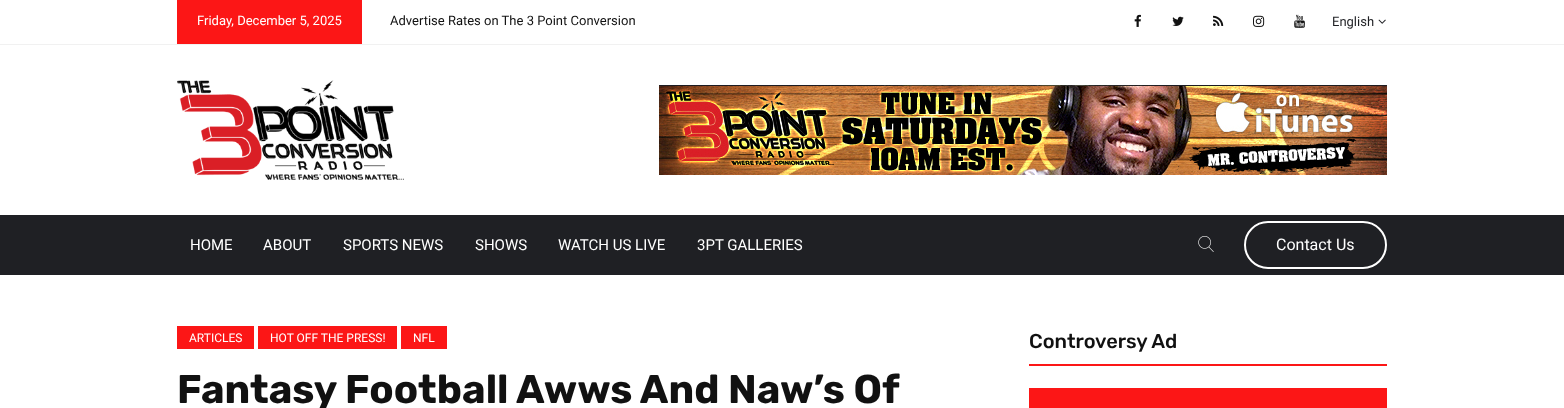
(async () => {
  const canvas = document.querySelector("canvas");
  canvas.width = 1564;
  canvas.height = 408;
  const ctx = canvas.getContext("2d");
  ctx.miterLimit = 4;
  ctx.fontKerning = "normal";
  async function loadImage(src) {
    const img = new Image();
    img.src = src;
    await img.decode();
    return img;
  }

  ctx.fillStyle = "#ffffff";
  ctx.fillRect(0, 0, 1564, 408);
  ctx.fillStyle = "#f1f1f1";
  ctx.fillRect(0, 44, 1564, 1);
  ctx.fillStyle = "#fc1616";
  ctx.fillRect(177, 0, 185, 44);
  ctx.drawImage(await loadImage("img/1.png"), 1134, 14, 7, 13);
  ctx.drawImage(await loadImage("img/2.png"), 1172, 16, 12, 10);
  ctx.drawImage(await loadImage("img/3.png"), 1213, 15, 11, 11);
  ctx.drawImage(await loadImage("img/4.png"), 1253, 15, 12, 12);
  ctx.drawImage(await loadImage("img/5.png"), 1294, 14, 11, 14);
  ctx.drawImage(await loadImage("img/6.png"), 1378, 19, 8, 5);
  ctx.drawImage(await loadImage("img/7.png"), 177, 80, 227, 100);
  ctx.drawImage(await loadImage("img/8.png"), 659, 85, 728, 90);
  ctx.fillStyle = "#1f2024";
  ctx.fillRect(0, 215, 1564, 60);
  ctx.drawImage(await loadImage("img/9.png"), 1198, 236, 16, 16);
  ctx.beginPath();
  ctx.roundRect(1245, 222, 141, 46, 23);
  ctx.strokeStyle = "#ffffff";
  ctx.lineWidth = 2;
  ctx.stroke();
  for (const [x, y, w, h, color] of [
    [177, 326, 77, 23, "#fc1616"],
    [258, 326, 139, 23, "#fc1616"],
    [401, 326, 46, 23, "#fc1616"],
    [1029, 364, 358, 2, "#fc1616"],
    [1029, 388, 358, 20, "#fc1616"],
  ]) {
    ctx.fillStyle = color;
    ctx.fillRect(x, y, w, h);
  }
  ctx.font = "13px Roboto";
  ctx.fillStyle = "#ffffff";
  ctx.fillText("Friday, December 5, 2025", 197, 25);
  ctx.fillStyle = "#111111";
  ctx.fillText("Advertise Rates on The 3 Point Conversion", 390, 25);
  ctx.fillStyle = "#1f2024";
  ctx.fillText("English", 1332, 26);
  ctx.font = "15px Roboto";
  ctx.fillStyle = "#ffffff";
  for (const [text, x, y] of [
    ["HOME", 190, 250],
    ["ABOUT", 263, 250],
    ["SPORTS NEWS", 343, 250],
    ["SHOWS", 475, 250],
    ["WATCH US LIVE", 558, 250],
    ["3PT GALLERIES", 697, 250],
  ]) {
    ctx.fillText(text, x, y);
  }
  ctx.font = "16px Roboto";
  ctx.fillText("Contact Us", 1276, 250);
  ctx.font = "12px Roboto";
  for (const [text, x, y] of [
    ["ARTICLES", 189, 342],
    ["HOT OFF THE PRESS!", 270, 342],
    ["NFL", 413, 342],
  ]) {
    ctx.fillText(text, x, y);
  }
  ctx.font = "bold 40px Rubik";
  ctx.fillStyle = "#111111";
  ctx.fillText("Fantasy Football Awws And Naw’s Of", 177, 403);
  ctx.font = "500 20px Rubik";
  ctx.fillText("Controversy Ad", 1029, 348);
})();
